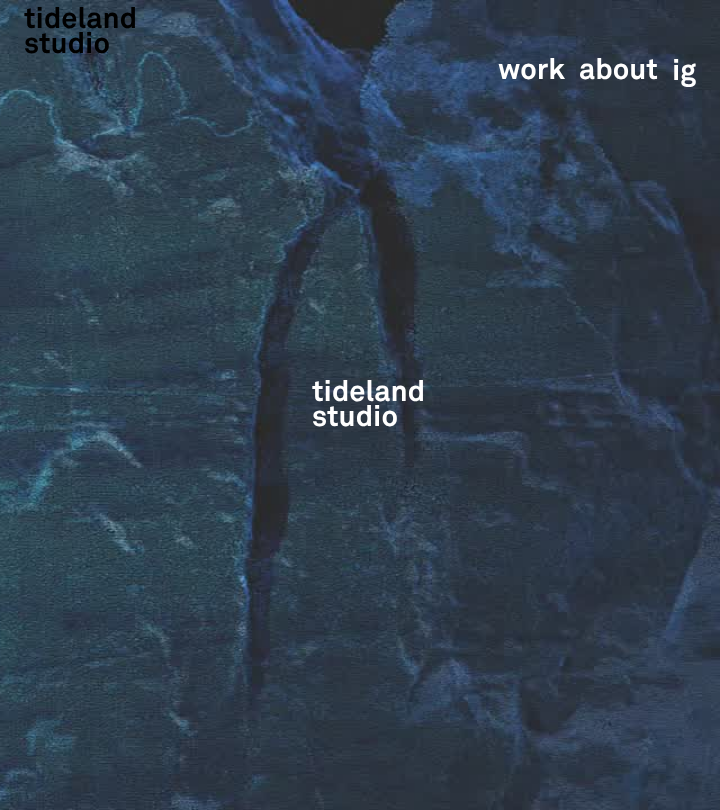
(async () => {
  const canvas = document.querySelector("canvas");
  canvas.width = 720;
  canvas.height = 810;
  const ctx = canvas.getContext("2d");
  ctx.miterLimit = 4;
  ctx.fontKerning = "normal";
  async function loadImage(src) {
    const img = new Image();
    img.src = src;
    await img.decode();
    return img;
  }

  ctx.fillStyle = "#ffffff";
  ctx.fillRect(0, 0, 720, 810);
  ctx.drawImage(await loadImage("img/1.png"), 0, 0, 720, 810);
  ctx.font = "bold 29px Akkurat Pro";
  ctx.fillStyle = "#000000";
  ctx.fillText("tideland", 24, 28);
  ctx.fillText("studio", 24, 53);
  ctx.fillStyle = "#ffffff";
  for (const [text, x, y] of [
    ["work", 498, 79],
    ["about", 579, 79],
    ["ig", 672, 80],
    ["tideland", 312, 401],
    ["studio", 312, 426],
  ]) {
    ctx.fillText(text, x, y);
  }
})();
